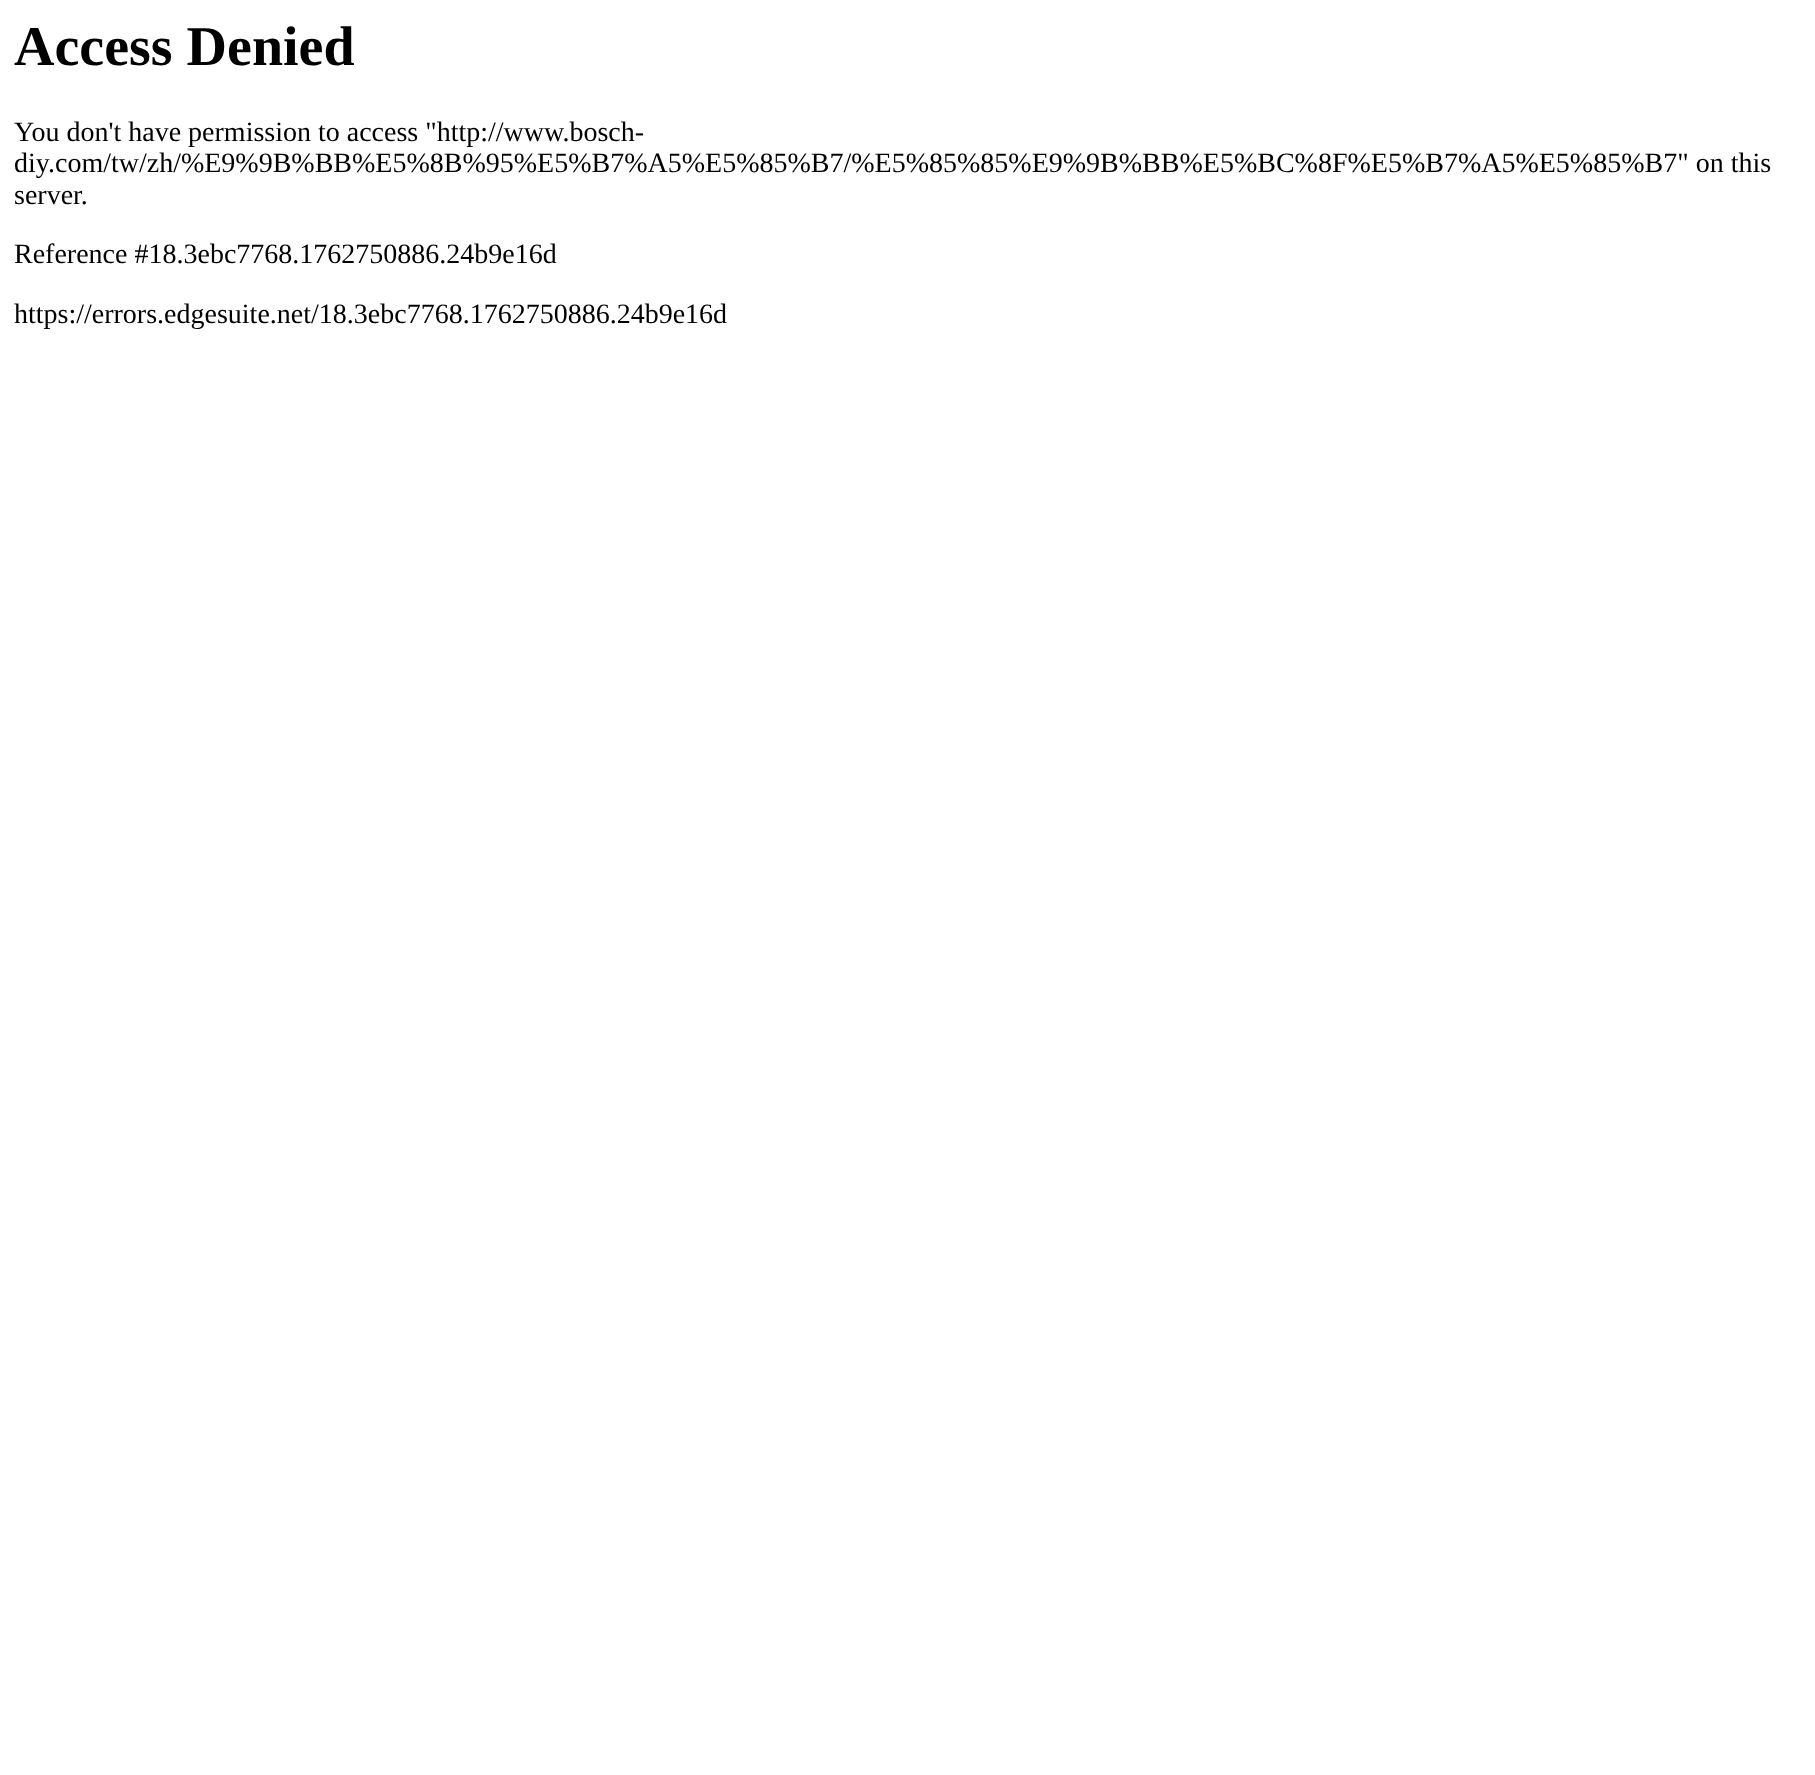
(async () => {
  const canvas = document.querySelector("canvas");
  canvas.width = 1815;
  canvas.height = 1775;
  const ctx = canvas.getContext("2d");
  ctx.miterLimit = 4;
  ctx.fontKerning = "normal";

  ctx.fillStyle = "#ffffff";
  ctx.fillRect(0, 0, 1815, 1775);
  ctx.font = "bold 56px Liberation Serif";
  ctx.fillStyle = "#000000";
  ctx.fillText("Access Denied", 14, 65);
  ctx.font = "28px Liberation Serif";
  for (const [text, x, y] of [
    ["You don't have permission to access \"http://www.bosch-", 14, 141],
    ["diy.com/tw/zh/%E9%9B%BB%E5%8B%95%E5%B7%A5%E5%85%B7/%E5%85%85%E9%9B%BB%E5%BC%8F%E5%B7%A5%E5%85%B7\" on this", 14, 172],
    ["server.", 14, 204],
    ["Reference #18.3ebc7768.1762750886.24b9e16d", 14, 263],
    ["https://errors.edgesuite.net/18.3ebc7768.1762750886.24b9e16d", 14, 323],
  ]) {
    ctx.fillText(text, x, y);
  }
})();
